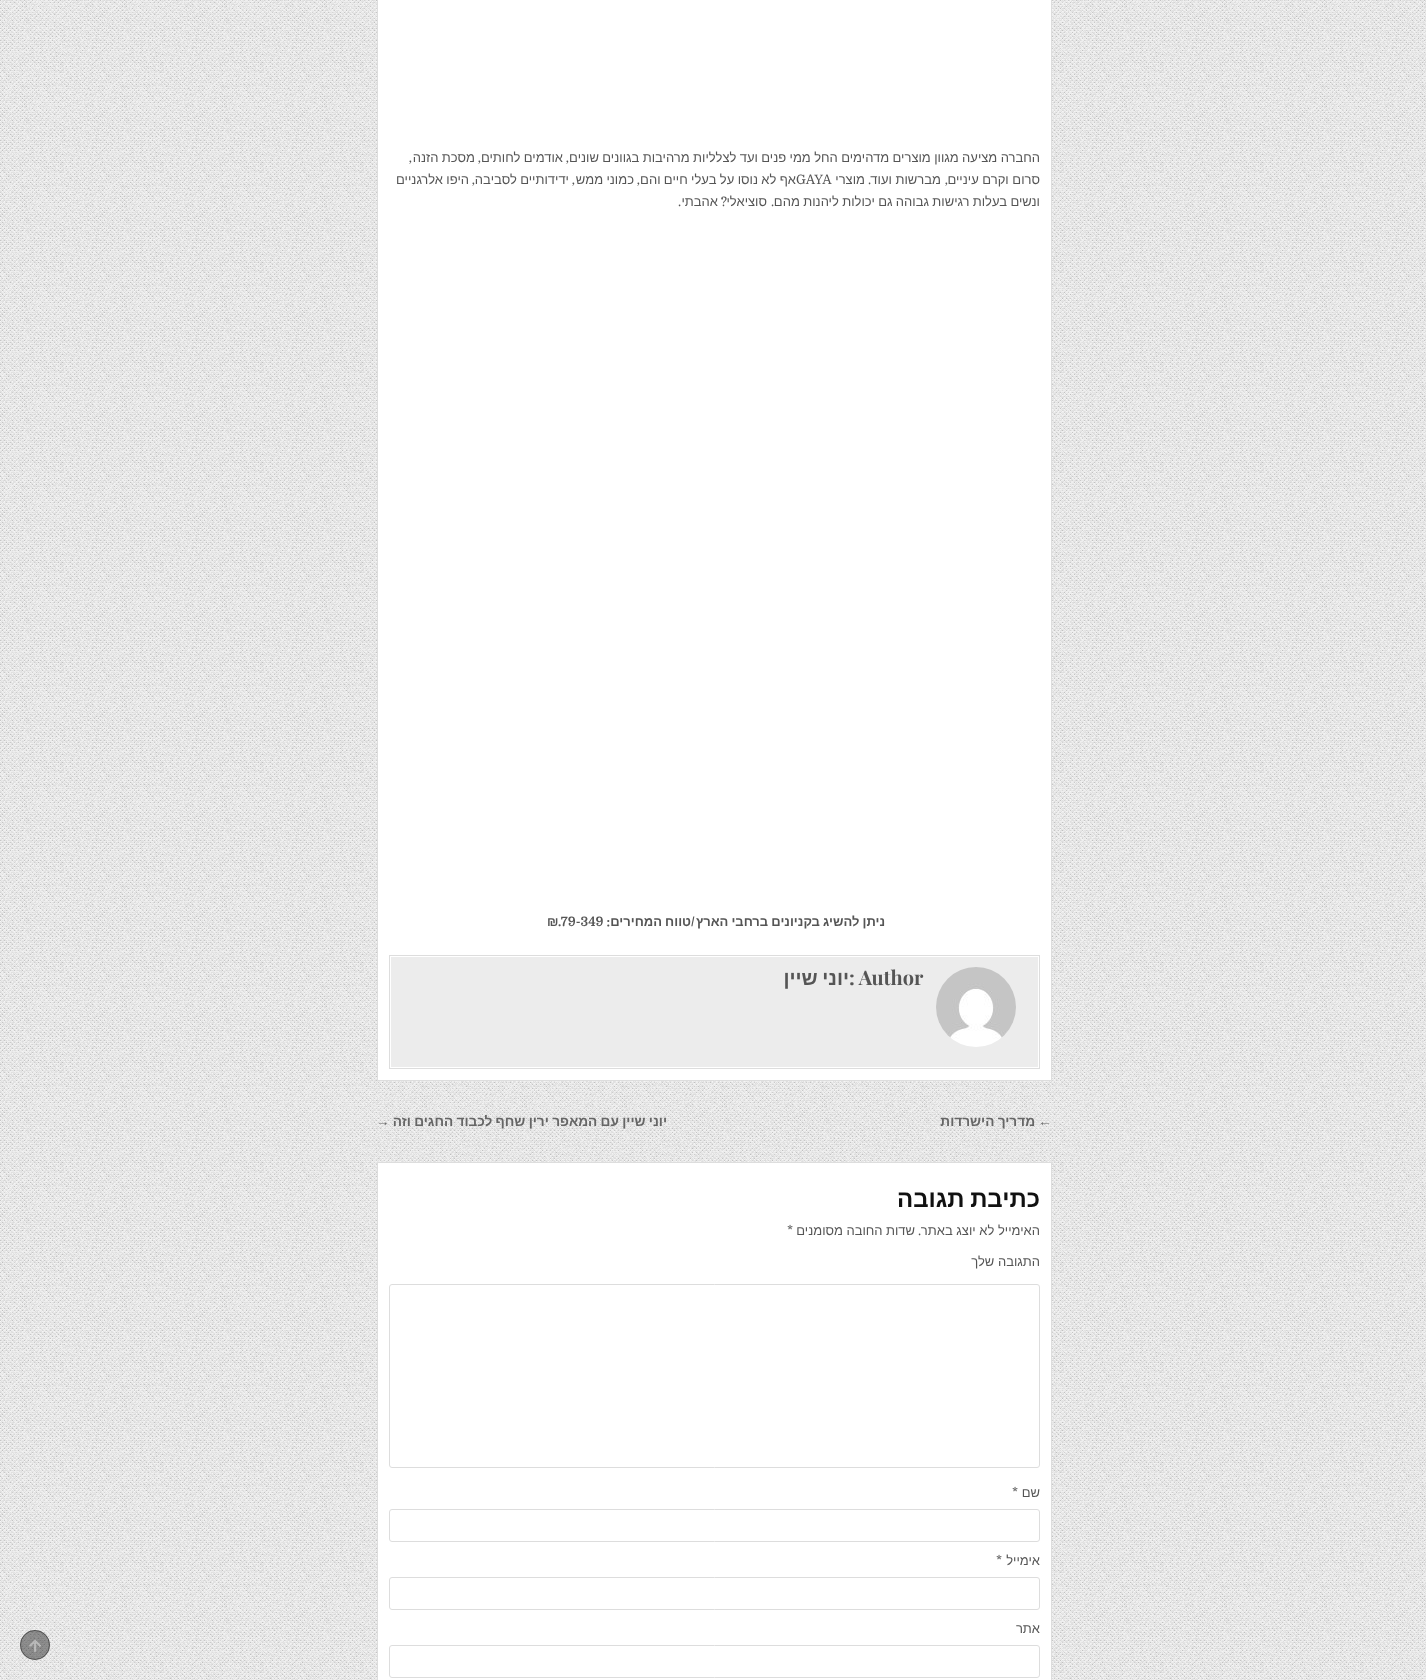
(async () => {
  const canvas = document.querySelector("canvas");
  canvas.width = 1426;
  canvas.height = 1680;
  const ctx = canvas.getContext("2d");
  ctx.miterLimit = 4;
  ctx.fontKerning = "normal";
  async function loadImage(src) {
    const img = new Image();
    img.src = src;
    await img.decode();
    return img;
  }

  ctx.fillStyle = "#ffffff";
  ctx.fillRect(0, 0, 1426, 1680);
  ctx.drawImage(await loadImage("img/1.png"), 0, 0, 1426, 1680);
  ctx.beginPath();
  ctx.rect(377.5, -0.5, 674, 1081);
  ctx.fill();
  ctx.strokeStyle = "#dddddd";
  ctx.stroke();
  ctx.fillStyle = "#ececec";
  ctx.fillRect(391, 957, 647, 110);
  ctx.strokeRect(389.5, 955.5, 650, 113);
  ctx.drawImage(await loadImage("img/2.png"), 936, 967, 80, 80);
  ctx.fillStyle = "#ffffff";
  ctx.beginPath();
  ctx.rect(377.5, 1162.5, 674, 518);
  ctx.fill();
  ctx.stroke();
  ctx.beginPath();
  ctx.roundRect(389.5, 1284.5, 650, 183, 2.5);
  ctx.stroke();
  ctx.beginPath();
  ctx.roundRect(389.5, 1509.5, 650, 32, 2.5);
  ctx.stroke();
  ctx.beginPath();
  ctx.roundRect(389.5, 1577.5, 650, 32, 2.5);
  ctx.stroke();
  ctx.beginPath();
  ctx.roundRect(389.5, 1645.5, 650, 32, 2.5);
  ctx.stroke();
  ctx.fillStyle = "rgba(0, 0, 0, 0.4)";
  ctx.beginPath();
  ctx.arc(35, 1645, 15, 0, Math.PI * 2);
  ctx.fill();
  ctx.beginPath();
  ctx.arc(35, 1645, 14.5, 0, Math.PI * 2);
  ctx.strokeStyle = "rgba(0, 0, 0, 0.4)";
  ctx.stroke();
  ctx.drawImage(await loadImage("img/3.png"), 29, 1639, 12, 13);
  ctx.wordSpacing = "-0.25px";
  ctx.direction = "rtl";
  ctx.font = "13px Liberation Sans";
  ctx.fillStyle = "#555555";
  ctx.fillText("החברה מציעה מגוון מוצרים מדהימים החל ממי פנים ועד לצלליות מרהיבות בגוונים שונים", 1040, 162);
  ctx.wordSpacing = "0px";
  ctx.font = "13px Domine";
  ctx.fillText(",", 569, 162);
  ctx.wordSpacing = "-0.25px";
  ctx.font = "13px Liberation Sans";
  ctx.fillText("אודמים לחותים", 563, 162);
  ctx.wordSpacing = "0px";
  ctx.font = "13px Domine";
  ctx.fillText(",", 481, 162);
  ctx.wordSpacing = "-0.25px";
  ctx.font = "13px Liberation Sans";
  ctx.fillText("מסכת הזנה", 475, 162);
  ctx.wordSpacing = "0px";
  ctx.font = "13px Domine";
  ctx.fillText(",", 412, 162);
  ctx.font = "13px Liberation Sans";
  ctx.fillText("סרום וקרם עיניים", 1040, 184);
  ctx.font = "13px Domine";
  ctx.fillText(",", 948, 184);
  ctx.font = "13px Liberation Sans";
  ctx.fillText("מברשות ועוד", 941, 184);
  ctx.font = "13px Domine";
  ctx.fillText(".", 871, 184);
  ctx.font = "13px Liberation Sans";
  ctx.fillText("מוצרי", 865, 184);
  ctx.wordSpacing = "-0.25px";
  ctx.fillText("אף לא נוסו על בעלי חיים והם", 796, 184);
  ctx.wordSpacing = "0px";
  ctx.direction = "ltr";
  ctx.font = "13px Domine";
  ctx.fillText("GAYA", 796, 184);
  ctx.direction = "rtl";
  ctx.fillText(",", 640, 184);
  ctx.wordSpacing = "-0.25px";
  ctx.font = "13px Liberation Sans";
  ctx.fillText("כמוני ממש", 634, 184);
  ctx.wordSpacing = "0px";
  ctx.font = "13px Domine";
  ctx.fillText(",", 575, 184);
  ctx.wordSpacing = "-0.25px";
  ctx.font = "13px Liberation Sans";
  ctx.fillText("ידידותיים לסביבה", 569, 184);
  ctx.wordSpacing = "0px";
  ctx.font = "13px Domine";
  ctx.fillText(",", 475, 184);
  ctx.wordSpacing = "-0.25px";
  ctx.font = "13px Liberation Sans";
  ctx.fillText("היפו אלרגניים", 469, 184);
  ctx.fillText("ונשים בעלות רגישות גבוהה גם יכולות ליהנות מהם", 1040, 206);
  ctx.wordSpacing = "0px";
  ctx.font = "13px Domine";
  ctx.fillText(".", 774, 206);
  ctx.font = "13px Liberation Sans";
  ctx.fillText("סוציאלי", 767, 206);
  ctx.font = "13px Domine";
  ctx.fillText("?", 727, 206);
  ctx.font = "13px Liberation Sans";
  ctx.fillText("אהבתי", 718, 206);
  ctx.font = "13px Domine";
  ctx.fillText(".", 681, 206);
  ctx.wordSpacing = "-0.5px";
  ctx.font = "bold 13px Liberation Sans";
  ctx.fillText("ניתן להשיג בקניונים ברחבי הארץ", 885, 926);
  ctx.fillText("טווח המחירים", 691, 926);
  ctx.wordSpacing = "0px";
  ctx.font = "bold 13px Domine";
  ctx.fillText("/", 695, 926);
  ctx.fillText(":", 610, 926);
  ctx.direction = "ltr";
  ctx.fillText(".79-349", 558, 926);
  ctx.font = "bold 13px Liberation Sans";
  ctx.fillText("₪", 547, 926);
  ctx.font = "bold 20px Playfair Display";
  ctx.fillText(": Author", 849, 985);
  ctx.wordSpacing = "-1px";
  ctx.direction = "rtl";
  ctx.font = "bold 20px Liberation Sans";
  ctx.fillText("יוני שיין", 849, 985);
  ctx.wordSpacing = "-0.5px";
  ctx.font = "bold 13.65px Liberation Sans";
  ctx.fillStyle = "#666666";
  ctx.fillText("← מדריך הישרדות", 1052, 1126);
  ctx.fillText("יוני שיין עם המאפר ירין שחף לכבוד החגים וזה →", 667, 1126);
  ctx.wordSpacing = "-1px";
  ctx.font = "bold 24px Liberation Sans";
  ctx.fillStyle = "#111111";
  ctx.fillText("כתיבת תגובה", 1040, 1207);
  ctx.wordSpacing = "0px";
  ctx.font = "13px Liberation Sans";
  ctx.fillStyle = "#555555";
  ctx.fillText("האימייל לא יוצג באתר", 1040, 1235);
  ctx.font = "13px Domine";
  ctx.fillText(".", 921, 1235);
  ctx.wordSpacing = "-0.25px";
  ctx.font = "13px Liberation Sans";
  ctx.fillText("שדות החובה מסומנים", 915, 1235);
  ctx.wordSpacing = "0px";
  ctx.direction = "ltr";
  ctx.font = "13px Domine";
  ctx.fillText("*", 787, 1235);
  ctx.direction = "rtl";
  ctx.font = "13px Liberation Sans";
  ctx.fillText("התגובה שלך", 1040, 1266);
  ctx.fillText("שם", 1040, 1497);
  ctx.direction = "ltr";
  ctx.font = "13px Domine";
  ctx.fillText("*", 1012, 1497);
  ctx.direction = "rtl";
  ctx.font = "13px Liberation Sans";
  ctx.fillText("אימייל", 1040, 1565);
  ctx.direction = "ltr";
  ctx.font = "13px Domine";
  ctx.fillText("*", 996, 1565);
  ctx.direction = "rtl";
  ctx.font = "13px Liberation Sans";
  ctx.fillText("אתר", 1040, 1633);
})();
